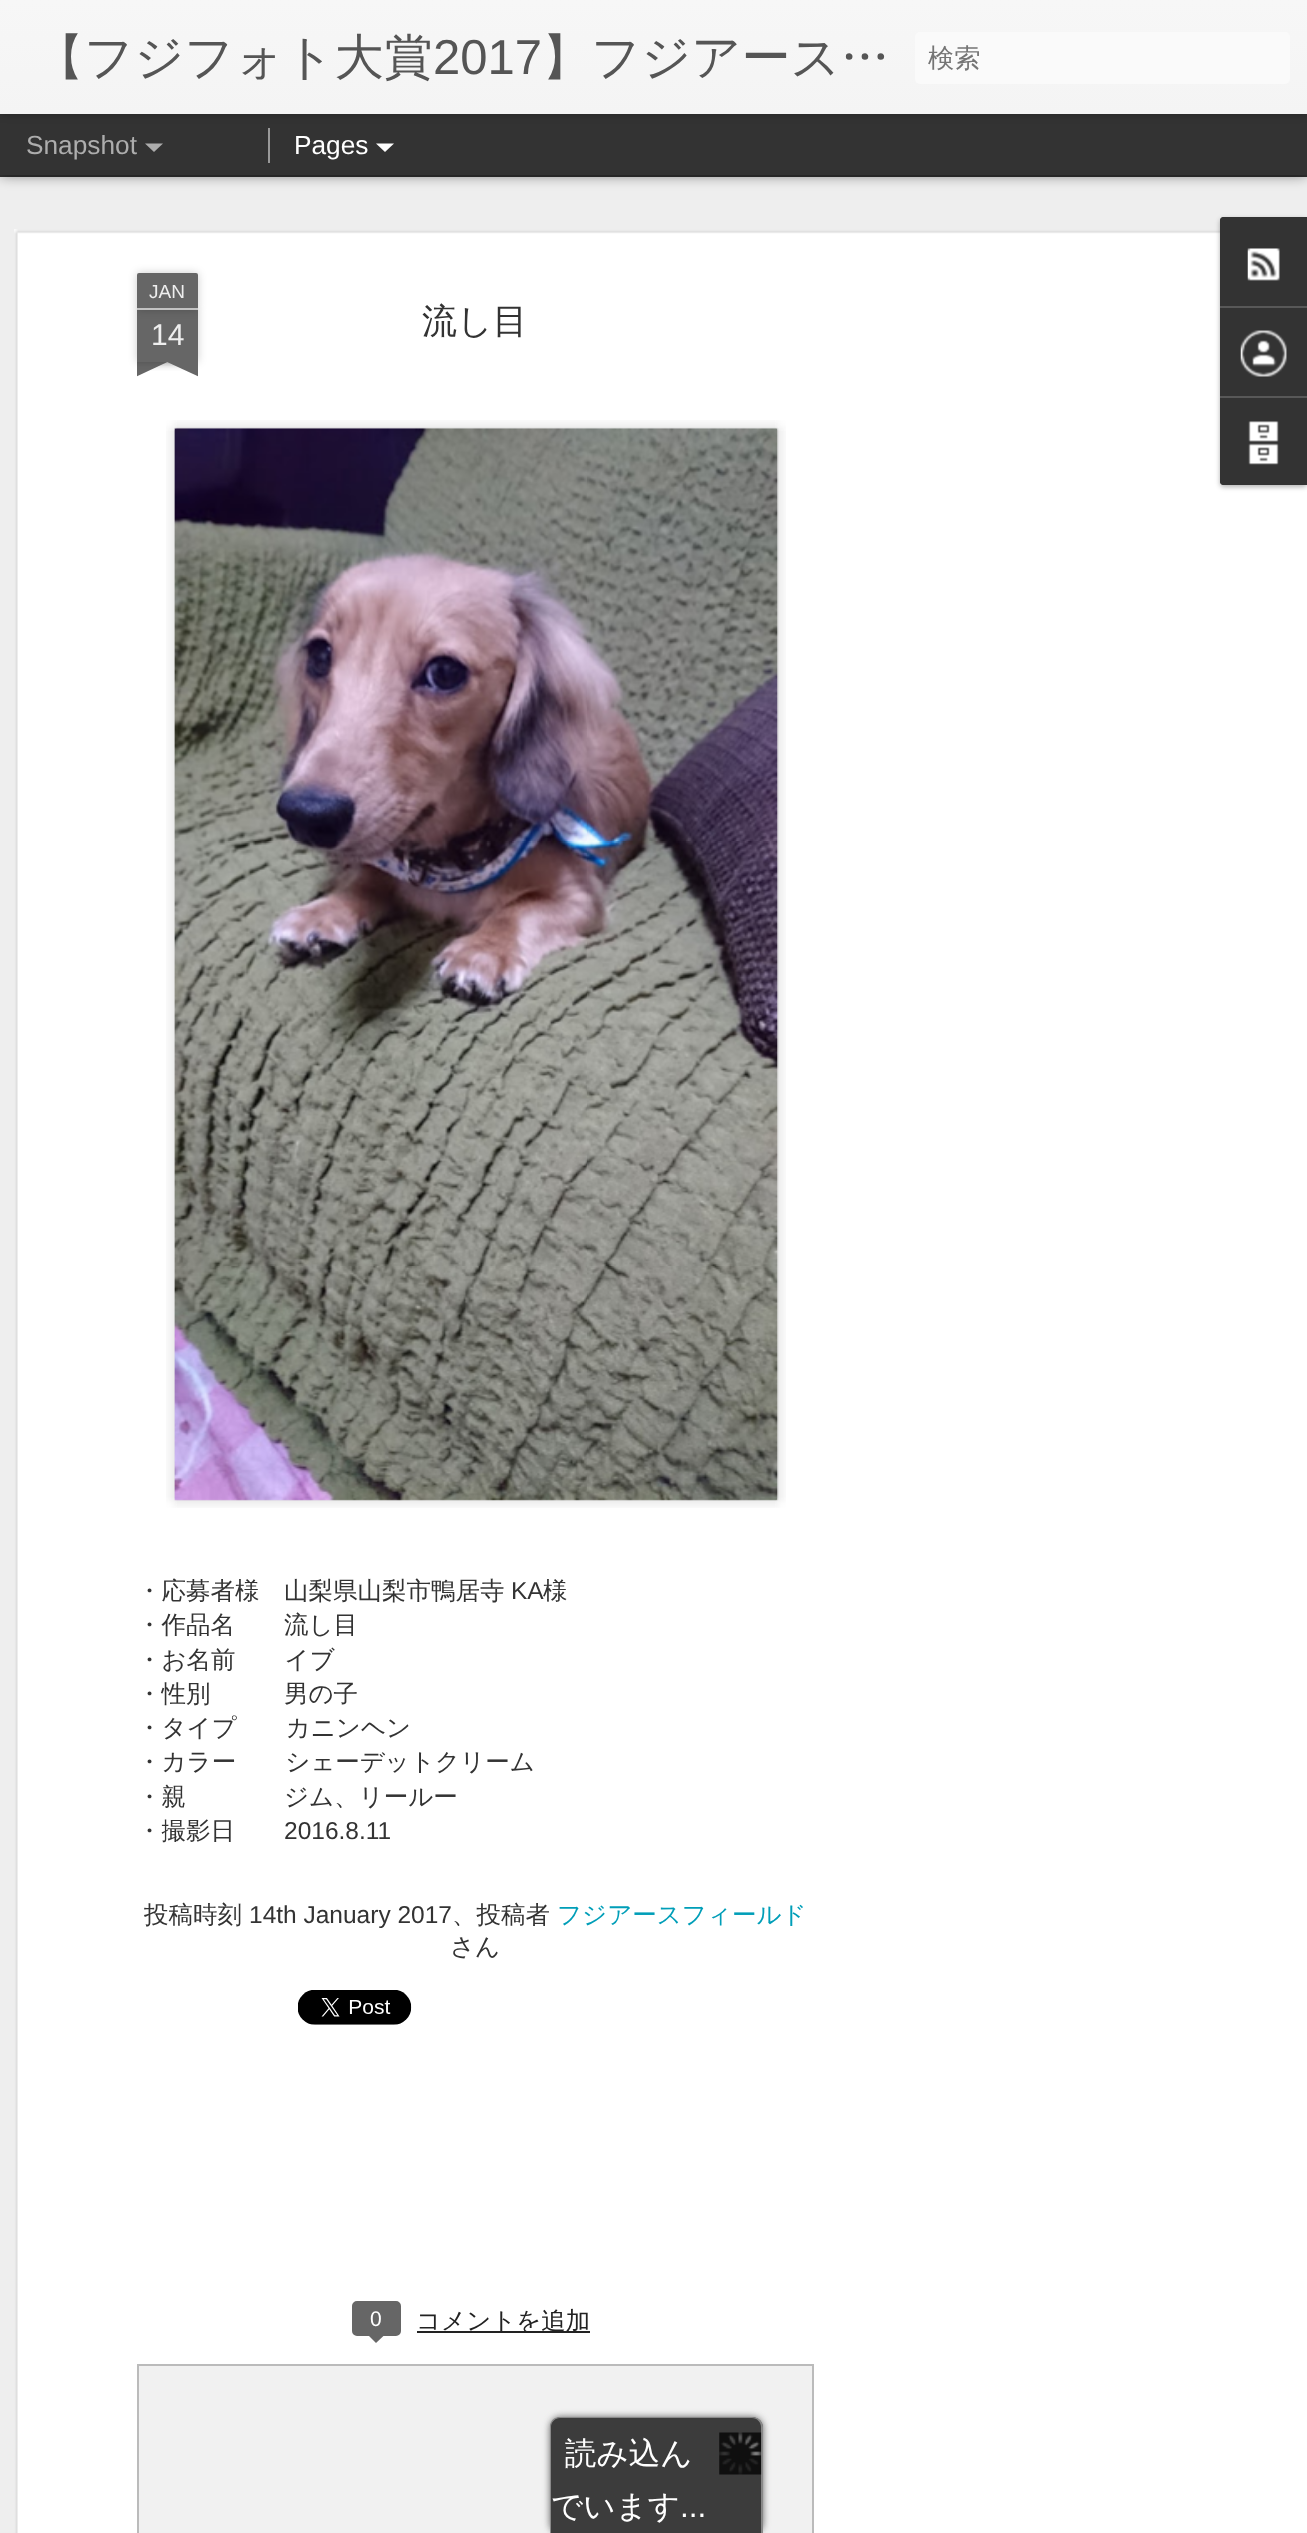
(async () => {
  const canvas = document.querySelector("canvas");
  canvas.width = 1307;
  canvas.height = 2533;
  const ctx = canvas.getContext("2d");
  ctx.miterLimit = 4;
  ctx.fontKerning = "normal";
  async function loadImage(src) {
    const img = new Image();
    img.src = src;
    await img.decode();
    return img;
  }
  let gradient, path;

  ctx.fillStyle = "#333333";
  ctx.fillRect(0, 0, 1307, 2533);
  ctx.fillStyle = "#eeeeee";
  ctx.fillRect(0, 177, 1307, 2356);
  ctx.fillStyle = "rgba(0, 0, 0, 0.5)";
  ctx.filter = "blur(7px)";
  ctx.beginPath();
  ctx.rect(0, 114, 1307, 61);
  ctx.fill();
  ctx.filter = "none";
  ctx.fillStyle = "#333333";
  ctx.fillRect(0, 114, 1307, 61);
  ctx.fillStyle = "#999999";
  ctx.fillRect(268, 128, 2, 35);
  ctx.fillStyle = "rgba(0, 0, 0, 0.3)";
  ctx.filter = "blur(4.5px)";
  ctx.beginPath();
  ctx.rect(0, 0, 1307, 114);
  ctx.fill();
  ctx.filter = "none";
  gradient = ctx.createLinearGradient(0, 0, 0, 114);
  gradient.addColorStop(0, "#f7f7f7");
  gradient.addColorStop(1, "#f4f4f4");
  ctx.fillStyle = gradient;
  ctx.fillRect(0, 0, 1307, 114);
  ctx.fillStyle = "#fafafa";
  ctx.beginPath();
  ctx.roundRect(915, 32, 375, 52, 5);
  ctx.fill();
  ctx.fillStyle = "#adadad";
  path = new Path2D("M145 143.5H163L154 152Z");
  ctx.fill(path);
  ctx.fillStyle = "#ffffff";
  path = new Path2D("M376 143.5H394L385 152Z");
  ctx.fill(path);
  ctx.fillRect(14, 229, 1293, 2304);
  ctx.drawImage(await loadImage("img/1.png"), 14, 229, 1206, 2304);
  ctx.fillStyle = "rgba(0, 0, 0, 0.2)";
  ctx.filter = "blur(4.5px)";
  ctx.beginPath();
  ctx.rect(137, 310, 61, 52);
  ctx.fill();
  ctx.filter = "none";
  ctx.fillStyle = "#666666";
  ctx.fillRect(137, 310, 61, 52);
  ctx.fillStyle = "rgba(0, 0, 0, 0.2)";
  ctx.filter = "blur(4.5px)";
  ctx.beginPath();
  ctx.roundRect(137, 273, 61, 37, 2);
  ctx.fill();
  ctx.filter = "none";
  ctx.fillStyle = "#666666";
  ctx.beginPath();
  ctx.roundRect(137, 273, 61, 37, [2, 2, 0, 0]);
  ctx.fill();
  ctx.fillStyle = "#c2c2c2";
  ctx.fillRect(137, 308, 61, 2);
  ctx.save();
  ctx.beginPath();
  ctx.rect(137, 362, 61, 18);
  ctx.clip();
  ctx.fillStyle = "rgba(0, 0, 0, 0.2)";
  ctx.filter = "blur(4.5px)";
  ctx.beginPath();
  ctx.rect(121, 345, 87, 17);
  ctx.fill();
  ctx.filter = "none";
  ctx.restore();
  ctx.save();
  ctx.beginPath();
  ctx.rect(137, 362, 61, 18);
  ctx.clip();
  ctx.fillStyle = "#666666";
  path = new Path2D("M121 364L200 327L208 343L129 380Z");
  ctx.fill(path);
  ctx.restore();
  ctx.save();
  ctx.beginPath();
  ctx.rect(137, 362, 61, 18);
  ctx.clip();
  ctx.fillStyle = "rgba(0, 0, 0, 0.2)";
  ctx.filter = "blur(4.5px)";
  ctx.beginPath();
  ctx.rect(126, 345, 88, 17);
  ctx.fill();
  ctx.filter = "none";
  ctx.restore();
  ctx.save();
  ctx.beginPath();
  ctx.rect(137, 362, 61, 18);
  ctx.clip();
  ctx.fillStyle = "#666666";
  path = new Path2D("M134 327L213 364L206 380L126 343Z");
  ctx.fill(path);
  ctx.restore();
  ctx.drawImage(await loadImage("img/2.png"), 166, 420, 620, 1088);
  ctx.drawImage(await loadImage("img/3.png"), 174, 427, 605, 1074);
  ctx.drawImage(await loadImage("img/4.png"), 298, 1990, 114, 35);
  ctx.fillStyle = "#666666";
  ctx.beginPath();
  ctx.roundRect(353, 2302, 47, 33, 4);
  ctx.fill();
  ctx.strokeStyle = "#666666";
  ctx.lineWidth = 2;
  ctx.stroke();
  path = new Path2D("M367.5 2334.5H385L376 2343Z");
  ctx.fill(path);
  ctx.fillStyle = "#222222";
  ctx.fillRect(417, 2331, 173, 2);
  ctx.fillStyle = "#f1f1f1";
  ctx.beginPath();
  ctx.rect(138, 2365, 675, 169);
  ctx.fill();
  ctx.strokeStyle = "#bbbbbb";
  ctx.stroke();
  ctx.fillStyle = "rgba(0, 0, 0, 0.3)";
  ctx.filter = "blur(2.5px)";
  ctx.beginPath();
  ctx.roundRect(1220, 219, 87, 268, 4);
  ctx.fill();
  ctx.filter = "none";
  ctx.fillStyle = "#333333";
  ctx.beginPath();
  ctx.roundRect(1220, 217, 87, 268, [4, 0, 0, 4]);
  ctx.fill();
  ctx.beginPath();
  ctx.roundRect(1220, 217, 87, 89, [4, 0, 0, 0]);
  ctx.fill();
  ctx.drawImage(await loadImage("img/5.png"), 1247, 248, 33, 33);
  ctx.fillStyle = "#585858";
  ctx.fillRect(1220, 306, 87, 2);
  ctx.drawImage(await loadImage("img/6.png"), 1240, 330, 47, 47);
  ctx.fillStyle = "#333333";
  ctx.beginPath();
  ctx.roundRect(1220, 396, 87, 89, [0, 0, 0, 4]);
  ctx.fill();
  ctx.fillStyle = "#585858";
  ctx.fillRect(1220, 396, 87, 2);
  ctx.drawImage(await loadImage("img/7.png"), 1248, 421, 31, 44);
  ctx.fillStyle = "#636363";
  ctx.filter = "blur(3.5px)";
  ctx.beginPath();
  ctx.roundRect(550, 2417, 213, 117, 11);
  ctx.fill();
  ctx.filter = "none";
  ctx.fillStyle = "#3c3c3c";
  path = new Path2D("M561 2417H752C758 2417 763 2422 763 2428V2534H550V2428C550 2422 555 2417 561 2417Z");
  ctx.fill(path);
  ctx.fillStyle = "#898989";
  path = new Path2D("M560 2417H752C758 2417 763 2421 763 2427V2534H550V2427C550 2421 554 2417 560 2417ZM560 2418H752C757 2418 761 2422 761 2427V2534H551V2427C551 2422 555 2418 560 2418Z");
  ctx.fill(path, "evenodd");
  ctx.drawImage(await loadImage("img/8.png"), 719, 2432, 43, 43);
  ctx.font = "500 49px WenQuanYi Zen Hei";
  ctx.fillStyle = "#555555";
  ctx.fillText("【フジフォト大賞", 35, 74);
  ctx.font = "49px Liberation Sans";
  ctx.fillText("2017", 433, 74);
  ctx.wordSpacing = "-1px";
  ctx.font = "500 49px WenQuanYi Zen Hei";
  ctx.fillText("】フジアース…", 542, 74);
  ctx.wordSpacing = "0px";
  ctx.font = "500 26.25px WenQuanYi Zen Hei";
  ctx.fillStyle = "#757575";
  ctx.fillText("検索", 928, 67);
  ctx.font = "26.25px Liberation Sans";
  ctx.fillStyle = "#adadad";
  ctx.fillText("Snapshot", 26, 154);
  ctx.fillStyle = "#ffffff";
  ctx.fillText("Pages", 294, 154);
  ctx.font = "19px Liberation Sans";
  ctx.fillStyle = "#eeeeee";
  ctx.fillText("JAN", 149, 298);
  ctx.font = "30px Liberation Sans";
  ctx.fillText("14", 151, 345);
  ctx.font = "500 35px WenQuanYi Zen Hei";
  ctx.fillStyle = "#333333";
  ctx.fillText("流し目", 422, 333);
  ctx.font = "500 24.5px WenQuanYi Zen Hei";
  ctx.fillText("・応募者様　山梨県山梨市鴨居寺", 137, 1599);
  ctx.font = "24.5px Liberation Sans";
  ctx.fillText("KA", 511, 1599);
  ctx.font = "500 24.5px WenQuanYi Zen Hei";
  for (const [text, x, y] of [
    ["様", 543, 1599],
    ["・作品名　　流し目", 137, 1633],
    ["・お名前　　イブ", 137, 1668],
    ["・性別　　　男の子", 137, 1702],
    ["・タイプ　　カニンヘン", 137, 1736],
    ["・カラー　　シェーデットクリーム", 137, 1770],
    ["・親　　　　ジム、リールー", 137, 1805],
    ["・撮影日", 137, 1839],
  ]) {
    ctx.fillText(text, x, y);
  }
  ctx.font = "24.5px Liberation Sans";
  ctx.fillText("2016.8.11", 284, 1839);
  ctx.font = "500 24.5px WenQuanYi Zen Hei";
  ctx.fillText("投稿時刻", 144, 1923);
  ctx.font = "24.5px Liberation Sans";
  ctx.fillText("14th January 2017", 249, 1923);
  ctx.font = "500 24.5px WenQuanYi Zen Hei";
  ctx.fillText("、投稿者", 452, 1923);
  ctx.fillStyle = "#009eb8";
  ctx.fillText("フジアースフィールド", 557, 1923);
  ctx.fillStyle = "#333333";
  ctx.fillText("さん", 450, 1955);
  ctx.font = "21px Liberation Sans";
  ctx.fillStyle = "#ffffff";
  ctx.fillText("0", 370, 2326);
  ctx.font = "500 24.5px WenQuanYi Zen Hei";
  ctx.fillStyle = "#222222";
  ctx.fillText("コメントを追加", 416, 2329);
  ctx.font = "500 31.5px WenQuanYi Zen Hei";
  ctx.fillStyle = "#ffffff";
  ctx.fillText("読み込ん", 565, 2464);
  ctx.fillText("でいます", 551, 2517);
  ctx.font = "31.5px Liberation Sans";
  ctx.fillText("...", 680, 2517);
})();
